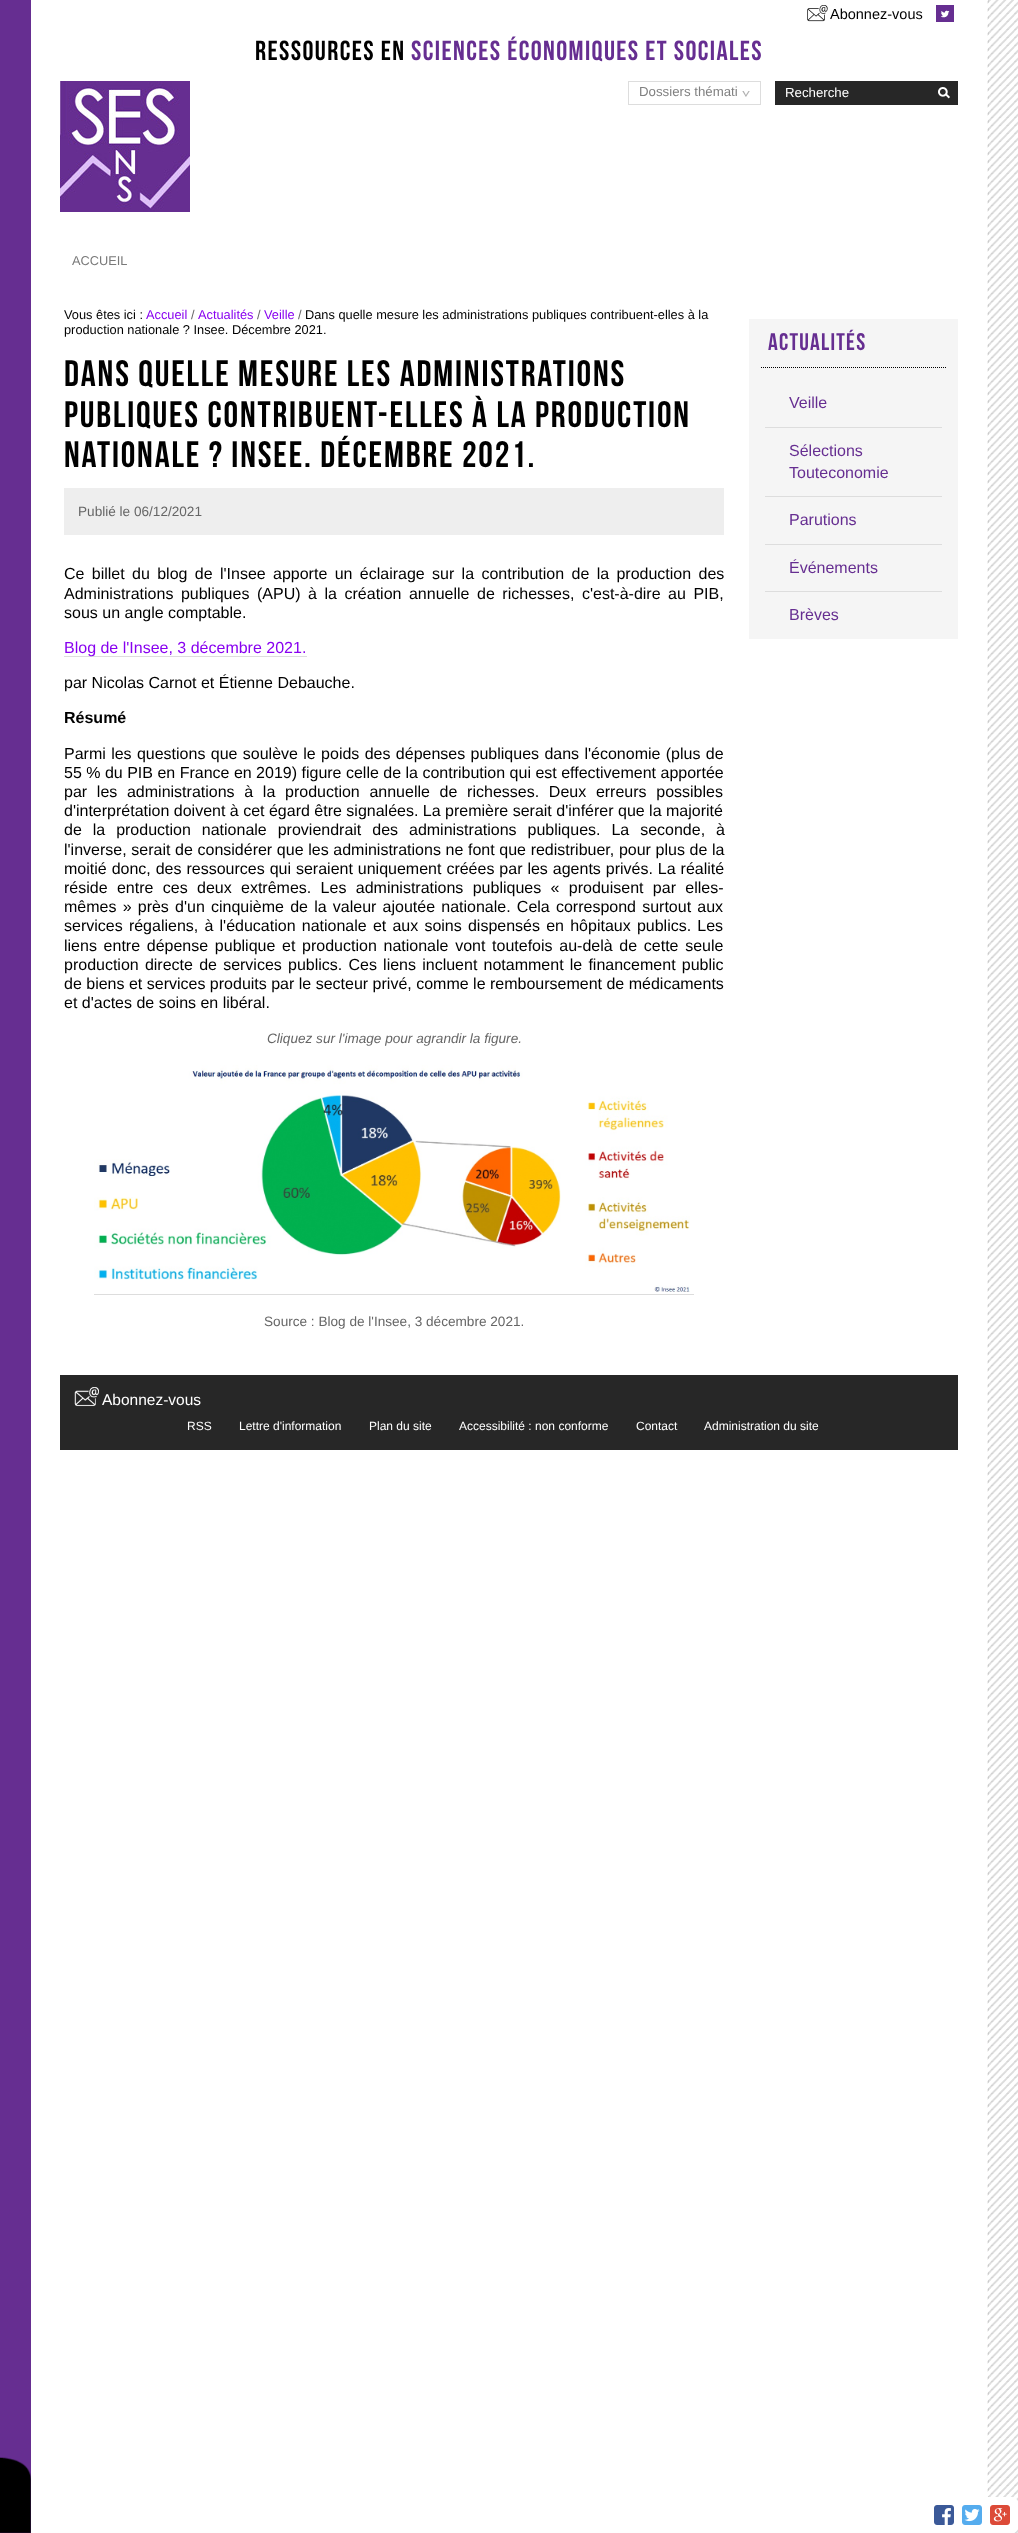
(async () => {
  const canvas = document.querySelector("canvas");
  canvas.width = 1018;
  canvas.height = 2533;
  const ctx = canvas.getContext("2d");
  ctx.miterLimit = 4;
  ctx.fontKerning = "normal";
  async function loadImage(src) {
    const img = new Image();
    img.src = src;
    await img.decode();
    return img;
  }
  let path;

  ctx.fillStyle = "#ffffff";
  ctx.fillRect(0, 0, 1018, 2533);
  ctx.fillStyle = "#662e91";
  ctx.fillRect(0, 0, 31, 2533);
  ctx.drawImage(await loadImage("img/1.png"), 0, 2457, 31, 76);
  ctx.drawImage(await loadImage("img/2.png"), 807, 5, 21, 17);
  ctx.fillRect(936, 5, 18, 17);
  ctx.drawImage(await loadImage("img/3.png"), 941, 10, 9, 8);
  ctx.drawImage(await loadImage("img/4.png"), 60, 81, 130, 131);
  ctx.drawImage(await loadImage("img/5.png"), 742, 91, 8, 6);
  ctx.strokeStyle = "#dddddd";
  ctx.strokeRect(628.5, 81.5, 132, 23);
  ctx.fillStyle = "#272727";
  ctx.fillRect(775, 81, 154, 24);
  ctx.drawImage(await loadImage("img/6.png"), 929, 81, 29, 24);
  ctx.fillStyle = "#eeeeee";
  ctx.fillRect(64, 488, 660, 47);
  ctx.fillStyle = "#dddddd";
  ctx.fillRect(64, 656, 243, 1);
  ctx.drawImage(await loadImage("img/7.png"), 94, 1065, 596, 227);
  ctx.fillRect(94, 1294, 600, 1);
  ctx.drawImage(await loadImage("img/12.png"), 987, 0, 31, 2533);
  ctx.fillStyle = "#ffffff";
  ctx.beginPath();
  ctx.roundRect(926, 2497, 92, 36, 6);
  ctx.fill();
  ctx.drawImage(await loadImage("img/8.png"), 934, 2505, 20, 20);
  ctx.drawImage(await loadImage("img/9.png"), 962, 2505, 20, 20);
  ctx.drawImage(await loadImage("img/10.png"), 990, 2505, 20, 20);
  ctx.fillStyle = "#f5f5f5";
  ctx.fillRect(749, 319, 209, 320);
  path = new Path2D("M761 367.5H946");
  ctx.strokeStyle = "#000000";
  ctx.setLineDash([1, 1]);
  ctx.stroke(path);
  for (const [x, y, w, h, color] of [
    [765, 427, 177, 1, "#dddddd"],
    [765, 496, 177, 1, "#dddddd"],
    [765, 544, 177, 1, "#dddddd"],
    [765, 591, 177, 1, "#dddddd"],
    [60, 1375, 898, 75, "#272727"],
  ]) {
    ctx.fillStyle = color;
    ctx.fillRect(x, y, w, h);
  }
  ctx.drawImage(await loadImage("img/11.png"), 74, 1387, 25, 20);
  ctx.font = "14.5px Liberation Sans";
  ctx.fillStyle = "#000000";
  ctx.fillText("Abonnez-vous", 830, 19);
  ctx.letterSpacing = "1.4px";
  ctx.font = "27.6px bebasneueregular";
  ctx.fillText("Ressources en", 255, 60);
  ctx.fillStyle = "#662e91";
  ctx.fillText("Sciences économiques et sociales", 411, 60);
  ctx.letterSpacing = "0px";
  ctx.font = "13.25px Liberation Sans";
  ctx.fillStyle = "#808080";
  ctx.fillText("Dossiers thémati", 639, 96);
  ctx.fillStyle = "#ffffff";
  ctx.fillText("Recherche", 785, 97);
  ctx.font = "12.8px Liberation Sans";
  ctx.fillStyle = "#797979";
  ctx.fillText("ACCUEIL", 72, 265);
  ctx.fillStyle = "#000000";
  ctx.fillText("Vous êtes ici :", 64, 319);
  ctx.fillStyle = "#8800f0";
  ctx.fillText("Accueil", 146, 319);
  ctx.fillStyle = "#666666";
  ctx.fillText("/", 191, 319);
  ctx.fillStyle = "#8800f0";
  ctx.fillText("Actualités", 198, 319);
  ctx.fillStyle = "#666666";
  ctx.fillText("/", 257, 319);
  ctx.fillStyle = "#8800f0";
  ctx.fillText("Veille", 264, 319);
  ctx.fillStyle = "#666666";
  ctx.fillText("/", 298, 319);
  ctx.fillStyle = "#000000";
  ctx.fillText("Dans quelle mesure les administrations publiques contribuent-elles à la", 305, 319);
  ctx.fillText("production nationale ? Insee. Décembre 2021.", 64, 334);
  ctx.letterSpacing = "1.85px";
  ctx.font = "36.75px bebasneueregular";
  for (const [text, x, y] of [
    ["Dans quelle mesure les administrations", 64, 386],
    ["publiques contribuent-elles à la production", 64, 427],
    ["nationale ? Insee. Décembre 2021.", 64, 467],
  ]) {
    ctx.fillText(text, x, y);
  }
  ctx.letterSpacing = "0px";
  ctx.font = "13.6px Liberation Sans";
  ctx.fillStyle = "#666666";
  ctx.fillText("Publié le 06/12/2021", 78, 516);
  ctx.wordSpacing = "2.9px";
  ctx.font = "16px Liberation Sans";
  ctx.fillStyle = "#000000";
  ctx.fillText("Ce billet du blog de l'Insee apporte un éclairage sur la contribution de la production des", 64, 579);
  ctx.wordSpacing = "3.1px";
  ctx.fillText("Administrations publiques (APU) à la création annuelle de richesses, c'est-à-dire au PIB,", 64, 599);
  ctx.wordSpacing = "0px";
  ctx.fillText("sous un angle comptable.", 64, 618);
  ctx.fillStyle = "#8800f0";
  ctx.fillText("Blog de l'Insee, 3 décembre 2021.", 64, 653);
  ctx.fillStyle = "#000000";
  ctx.fillText("par Nicolas Carnot et Étienne Debauche.", 64, 688);
  ctx.font = "bold 16px Liberation Sans";
  ctx.fillText("Résumé", 64, 723);
  ctx.wordSpacing = "0.9px";
  ctx.font = "16px Liberation Sans";
  ctx.fillText("Parmi les questions que soulève le poids des dépenses publiques dans l'économie (plus de", 64, 759);
  ctx.wordSpacing = "0px";
  ctx.fillText("55 % du PIB en France en 2019) figure celle de la contribution qui est effectivement apportée", 64, 778);
  ctx.wordSpacing = "5.25px";
  ctx.fillText("par les administrations à la production annuelle de richesses. Deux erreurs possibles", 64, 797);
  ctx.wordSpacing = "0px";
  ctx.fillText("d'interprétation doivent à cet égard être signalées. La première serait d'inférer que la majorité", 64, 816);
  ctx.wordSpacing = "6.5px";
  ctx.fillText("de la production nationale proviendrait des administrations publiques. La seconde, à", 64, 835);
  ctx.wordSpacing = "0.2px";
  ctx.fillText("l'inverse, serait de considérer que les administrations ne font que redistribuer, pour plus de la", 64, 855);
  ctx.wordSpacing = "0.5px";
  ctx.fillText("moitié donc, des ressources qui seraient uniquement créées par les agents privés. La réalité", 64, 874);
  ctx.wordSpacing = "4.9px";
  ctx.fillText("réside entre ces deux extrêmes. Les administrations publiques « produisent par elles-", 64, 893);
  ctx.wordSpacing = "1.75px";
  ctx.fillText("mêmes » près d'un cinquième de la valeur ajoutée nationale. Cela correspond surtout aux", 64, 912);
  ctx.fillText("services régaliens, à l'éducation nationale et aux soins dispensés en hôpitaux publics. Les", 64, 931);
  ctx.wordSpacing = "2.25px";
  ctx.fillText("liens entre dépense publique et production nationale vont toutefois au-delà de cette seule", 64, 951);
  ctx.wordSpacing = "1.75px";
  ctx.fillText("production directe de services publics. Ces liens incluent notamment le financement public", 64, 970);
  ctx.wordSpacing = "0px";
  ctx.fillText("de biens et services produits par le secteur privé, comme le remboursement de médicaments", 64, 989);
  ctx.fillText("et d'actes de soins en libéral.", 64, 1008);
  ctx.font = "italic 13.6px Liberation Sans";
  ctx.fillStyle = "#666666";
  ctx.fillText("Cliquez sur l'image pour agrandir la figure.", 267, 1043);
  ctx.font = "13.6px Liberation Sans";
  ctx.fillText("Source : Blog de l'Insee, 3 décembre 2021.", 264, 1326);
  ctx.letterSpacing = "1.25px";
  ctx.font = "24px bebasneueregular";
  ctx.fillStyle = "#662e91";
  ctx.fillText("Actualités", 768, 350);
  ctx.letterSpacing = "0px";
  ctx.font = "16px Liberation Sans";
  for (const [text, x, y] of [
    ["Veille", 789, 408],
    ["Sélections", 789, 456],
    ["Touteconomie", 789, 478],
    ["Parutions", 789, 525],
    ["Événements", 789, 573],
    ["Brèves", 789, 620],
  ]) {
    ctx.fillText(text, x, y);
  }
  ctx.font = "15.5px Liberation Sans";
  ctx.fillStyle = "#ffffff";
  ctx.fillText("Abonnez-vous", 102, 1405);
  ctx.font = "12px Liberation Sans";
  for (const [text, x, y] of [
    ["RSS", 187, 1430],
    ["Lettre d'information", 239, 1430],
    ["Plan du site", 369, 1430],
    ["Accessibilité : non conforme", 459, 1430],
    ["Contact", 636, 1430],
    ["Administration du site", 704, 1430],
  ]) {
    ctx.fillText(text, x, y);
  }
})();
